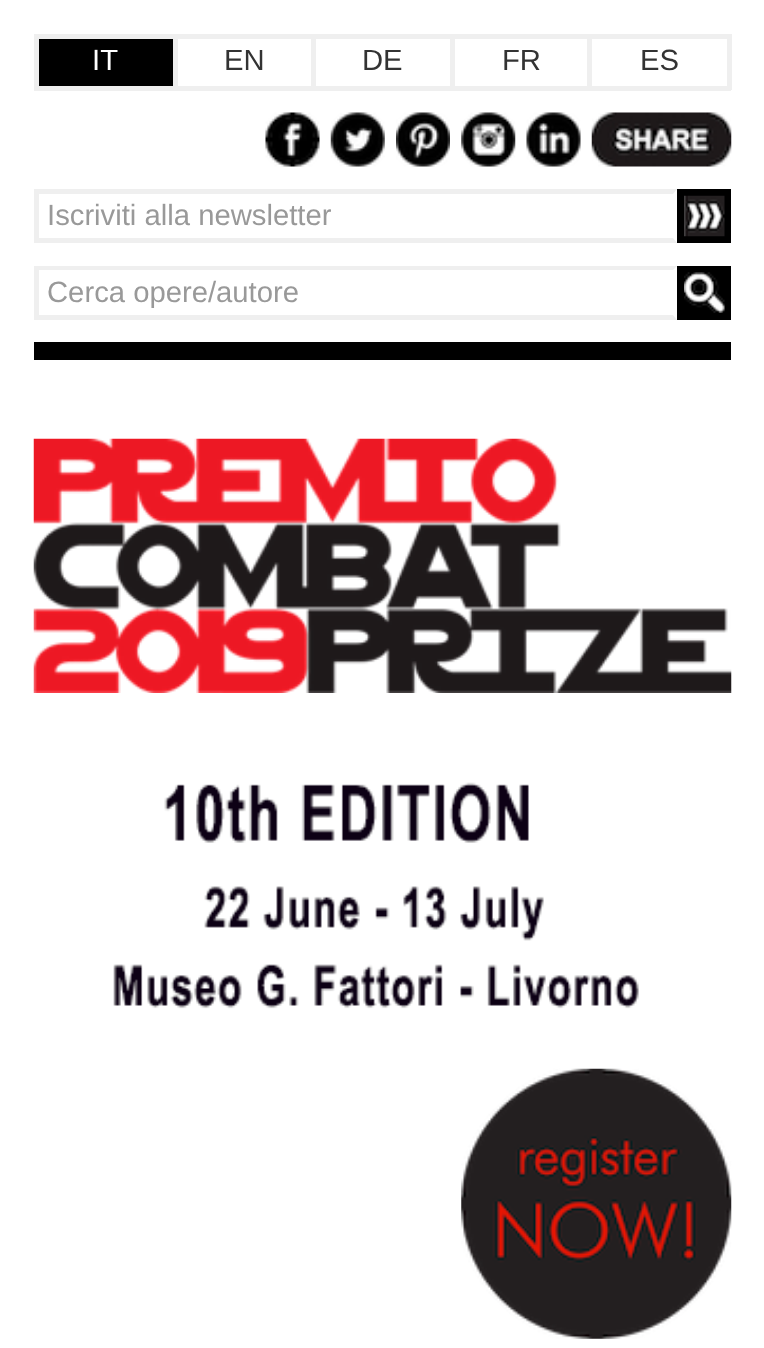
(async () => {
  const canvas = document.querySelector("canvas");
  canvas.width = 764;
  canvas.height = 1348;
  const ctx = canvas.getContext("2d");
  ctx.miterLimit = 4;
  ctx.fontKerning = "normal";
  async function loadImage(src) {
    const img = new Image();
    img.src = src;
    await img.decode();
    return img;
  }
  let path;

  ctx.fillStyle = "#ffffff";
  ctx.fillRect(0, 0, 764, 1348);
  for (const [x, y, w, h, color] of [
    [34, 34, 697, 5, "#efefef"],
    [727, 34, 5, 56, "#efefef"],
    [34, 86, 697, 5, "#efefef"],
    [34, 34, 5, 56, "#efefef"],
    [39, 39, 134, 47, "#000000"],
    [173, 34, 5, 56, "#efefef"],
    [311, 34, 5, 56, "#efefef"],
    [450, 34, 5, 56, "#efefef"],
    [587, 34, 5, 56, "#efefef"],
  ]) {
    ctx.fillStyle = color;
    ctx.fillRect(x, y, w, h);
  }
  ctx.drawImage(await loadImage("img/1.png"), 265, 112, 55, 55);
  ctx.drawImage(await loadImage("img/2.png"), 330, 112, 55, 55);
  ctx.drawImage(await loadImage("img/3.png"), 396, 112, 54, 55);
  ctx.drawImage(await loadImage("img/4.png"), 461, 112, 55, 55);
  ctx.drawImage(await loadImage("img/5.png"), 526, 112, 55, 55);
  ctx.drawImage(await loadImage("img/6.png"), 591, 112, 141, 55);
  path = new Path2D("M34 189H677L673 194H38Z");
  ctx.fill(path);
  path = new Path2D("M677 243H34L38 238H673Z");
  ctx.fill(path);
  ctx.fillRect(34, 189, 5, 54);
  ctx.fillStyle = "#000000";
  ctx.fillRect(677, 189, 54, 54);
  ctx.drawImage(await loadImage("img/7.png"), 684, 195, 41, 42);
  ctx.fillStyle = "#efefef";
  path = new Path2D("M34 266H677L673 270H38Z");
  ctx.fill(path);
  path = new Path2D("M677 320H34L38 315H673Z");
  ctx.fill(path);
  ctx.fillRect(34, 266, 5, 54);
  ctx.fillStyle = "#000000";
  ctx.fillRect(677, 266, 54, 54);
  ctx.drawImage(await loadImage("img/8.png"), 684, 272, 41, 41);
  ctx.fillRect(34, 342, 697, 18);
  ctx.drawImage(await loadImage("img/9.png"), 33, 438, 699, 255);
  ctx.drawImage(await loadImage("img/10.png"), 113, 782, 526, 227);
  ctx.drawImage(await loadImage("img/11.png"), 461, 1068, 271, 271);
  ctx.font = "29.25px Liberation Sans";
  ctx.fillStyle = "#ffffff";
  ctx.fillText("IT", 92, 70);
  ctx.fillStyle = "#333333";
  for (const [text, x, y] of [
    ["EN", 224, 70],
    ["DE", 362, 70],
    ["FR", 502, 70],
    ["ES", 640, 70],
  ]) {
    ctx.fillText(text, x, y);
  }
  ctx.fillStyle = "#999999";
  ctx.fillText("Iscriviti alla newsletter", 47, 225);
  ctx.fillText("Cerca opere/autore", 47, 302);
})();
